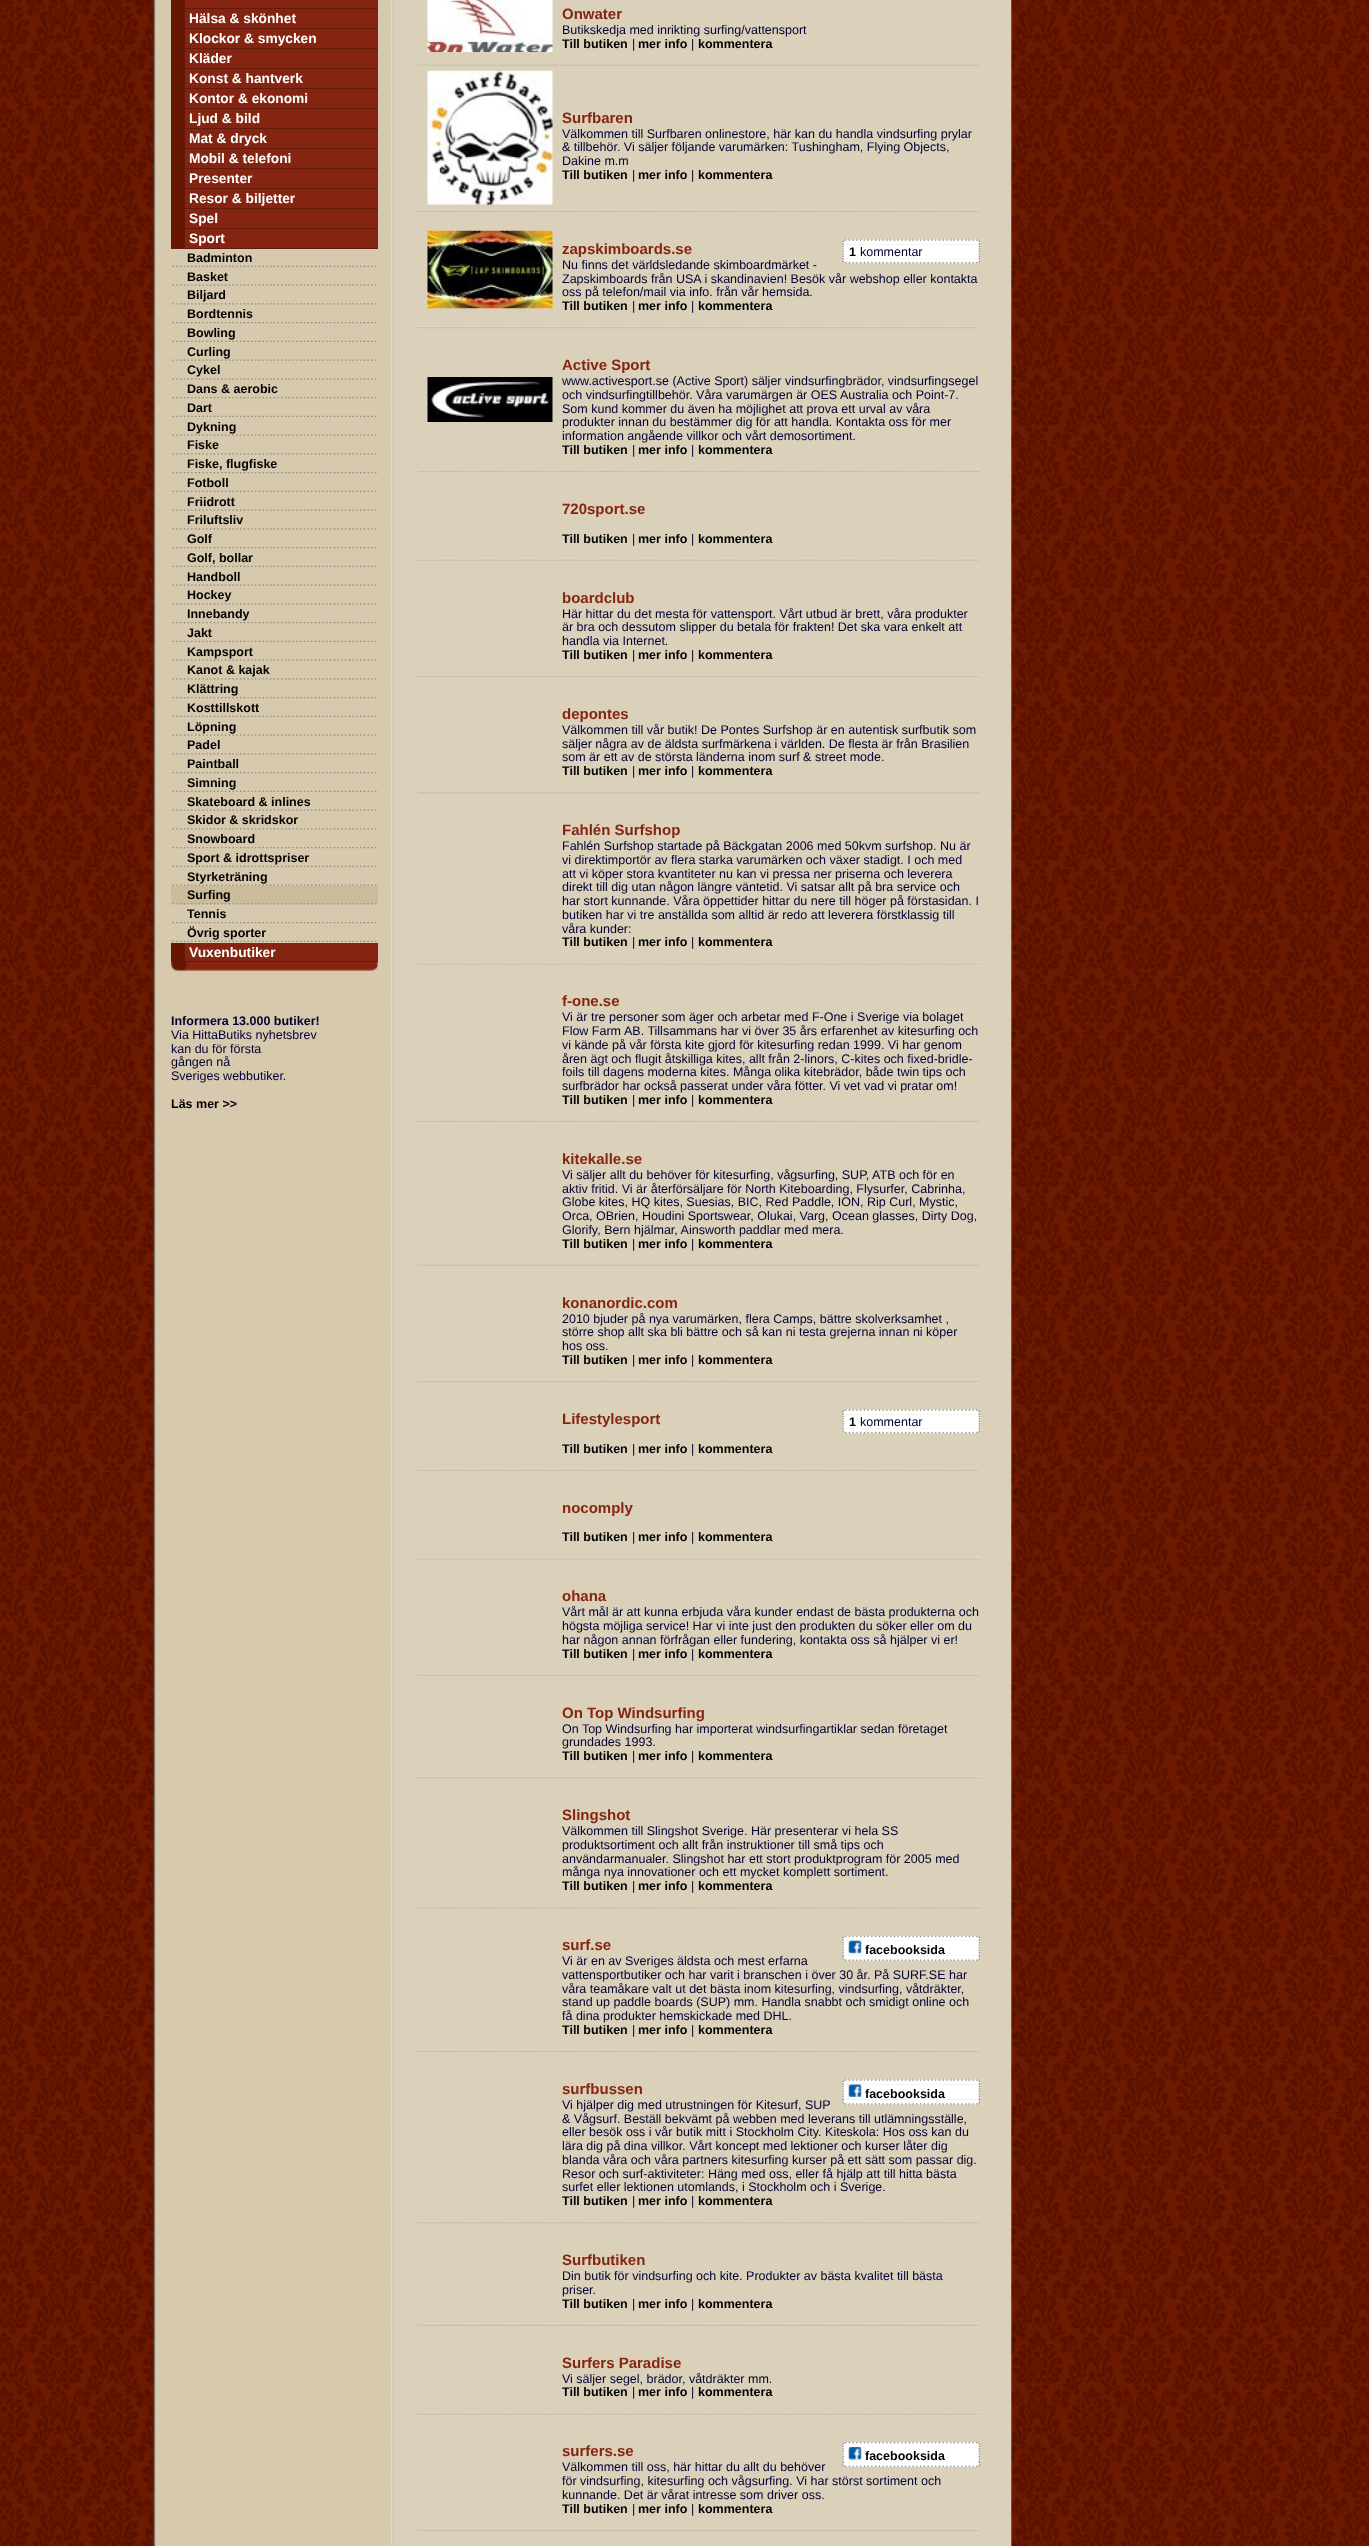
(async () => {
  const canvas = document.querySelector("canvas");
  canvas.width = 1369;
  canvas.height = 2546;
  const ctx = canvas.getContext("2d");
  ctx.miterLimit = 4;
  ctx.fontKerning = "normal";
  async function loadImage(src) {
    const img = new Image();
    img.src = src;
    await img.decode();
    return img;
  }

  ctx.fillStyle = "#ffffff";
  ctx.fillRect(0, 0, 1369, 2546);
  ctx.drawImage(await loadImage("img/1.png"), 0, 0, 1369, 2546);
  ctx.drawImage(await loadImage("img/2.png"), 153, 0, 859, 2546);
  for (const [x, y, w, h, color] of [
    [171, 0, 13, 8, "#681500"],
    [184, 0, 1, 8, "#611b0c"],
    [185, 0, 193, 8, "#852511"],
    [171, 8, 207, 1, "#611b0c"],
    [171, 9, 13, 19, "#681500"],
    [184, 9, 1, 19, "#611b0c"],
    [185, 9, 193, 19, "#852511"],
    [171, 28, 207, 1, "#611b0c"],
    [171, 29, 13, 19, "#681500"],
    [184, 29, 1, 19, "#611b0c"],
    [185, 29, 193, 19, "#852511"],
    [171, 48, 207, 1, "#611b0c"],
    [171, 49, 13, 19, "#681500"],
    [184, 49, 1, 19, "#611b0c"],
    [185, 49, 193, 19, "#852511"],
    [171, 68, 207, 1, "#611b0c"],
    [171, 69, 13, 19, "#681500"],
    [184, 69, 1, 19, "#611b0c"],
    [185, 69, 193, 19, "#852511"],
    [171, 88, 207, 1, "#611b0c"],
    [171, 89, 13, 19, "#681500"],
    [184, 89, 1, 19, "#611b0c"],
    [185, 89, 193, 19, "#852511"],
    [171, 108, 207, 1, "#611b0c"],
    [171, 109, 13, 19, "#681500"],
    [184, 109, 1, 19, "#611b0c"],
    [185, 109, 193, 19, "#852511"],
    [171, 128, 207, 1, "#611b0c"],
    [171, 129, 13, 19, "#681500"],
    [184, 129, 1, 19, "#611b0c"],
    [185, 129, 193, 19, "#852511"],
    [171, 148, 207, 1, "#611b0c"],
    [171, 149, 13, 19, "#681500"],
    [184, 149, 1, 19, "#611b0c"],
    [185, 149, 193, 19, "#852511"],
    [171, 168, 207, 1, "#611b0c"],
    [171, 169, 13, 19, "#681500"],
    [184, 169, 1, 19, "#611b0c"],
    [185, 169, 193, 19, "#852511"],
    [171, 188, 207, 1, "#611b0c"],
    [171, 189, 13, 19, "#681500"],
    [184, 189, 1, 19, "#611b0c"],
    [185, 189, 193, 19, "#852511"],
    [171, 208, 207, 1, "#611b0c"],
    [171, 209, 13, 19, "#681500"],
    [184, 209, 1, 19, "#611b0c"],
    [185, 209, 193, 19, "#852511"],
    [171, 228, 207, 1, "#611b0c"],
    [171, 229, 13, 19, "#681500"],
    [184, 229, 1, 19, "#611b0c"],
    [185, 229, 193, 19, "#852511"],
    [171, 248, 207, 1, "#611b0c"],
  ]) {
    ctx.fillStyle = color;
    ctx.fillRect(x, y, w, h);
  }
  ctx.drawImage(await loadImage("img/3.png"), 172, 265, 205, 2);
  ctx.drawImage(await loadImage("img/4.png"), 172, 284, 205, 2);
  ctx.drawImage(await loadImage("img/5.png"), 172, 303, 205, 2);
  ctx.drawImage(await loadImage("img/6.png"), 172, 322, 205, 2);
  ctx.drawImage(await loadImage("img/3.png"), 172, 340, 205, 2);
  ctx.drawImage(await loadImage("img/4.png"), 172, 359, 205, 2);
  ctx.drawImage(await loadImage("img/5.png"), 172, 378, 205, 2);
  ctx.drawImage(await loadImage("img/6.png"), 172, 397, 205, 2);
  ctx.drawImage(await loadImage("img/3.png"), 172, 415, 205, 2);
  ctx.drawImage(await loadImage("img/4.png"), 172, 434, 205, 2);
  ctx.drawImage(await loadImage("img/5.png"), 172, 453, 205, 2);
  ctx.drawImage(await loadImage("img/6.png"), 172, 472, 205, 2);
  ctx.drawImage(await loadImage("img/3.png"), 172, 490, 205, 2);
  ctx.drawImage(await loadImage("img/4.png"), 172, 509, 205, 2);
  ctx.drawImage(await loadImage("img/5.png"), 172, 528, 205, 2);
  ctx.drawImage(await loadImage("img/6.png"), 172, 547, 205, 2);
  ctx.drawImage(await loadImage("img/3.png"), 172, 565, 205, 2);
  ctx.drawImage(await loadImage("img/4.png"), 172, 584, 205, 2);
  ctx.drawImage(await loadImage("img/5.png"), 172, 603, 205, 2);
  ctx.drawImage(await loadImage("img/6.png"), 172, 622, 205, 2);
  ctx.drawImage(await loadImage("img/3.png"), 172, 640, 205, 2);
  ctx.drawImage(await loadImage("img/4.png"), 172, 659, 205, 2);
  ctx.drawImage(await loadImage("img/5.png"), 172, 678, 205, 2);
  ctx.drawImage(await loadImage("img/6.png"), 172, 697, 205, 2);
  ctx.drawImage(await loadImage("img/3.png"), 172, 715, 205, 2);
  ctx.drawImage(await loadImage("img/4.png"), 172, 734, 205, 2);
  ctx.drawImage(await loadImage("img/5.png"), 172, 753, 205, 2);
  ctx.drawImage(await loadImage("img/6.png"), 172, 772, 205, 2);
  ctx.drawImage(await loadImage("img/3.png"), 172, 790, 205, 2);
  ctx.drawImage(await loadImage("img/4.png"), 172, 809, 205, 2);
  ctx.drawImage(await loadImage("img/5.png"), 172, 828, 205, 2);
  ctx.drawImage(await loadImage("img/6.png"), 172, 847, 205, 2);
  ctx.drawImage(await loadImage("img/3.png"), 172, 865, 205, 2);
  ctx.drawImage(await loadImage("img/4.png"), 172, 884, 205, 2);
  ctx.fillStyle = "#cabb9a";
  ctx.fillRect(171, 886, 207, 18);
  ctx.drawImage(await loadImage("img/7.png"), 172, 903, 205, 2);
  ctx.drawImage(await loadImage("img/6.png"), 172, 922, 205, 2);
  ctx.drawImage(await loadImage("img/3.png"), 172, 940, 205, 2);
  for (const [x, y, w, h, color] of [
    [171, 943, 13, 18, "#681500"],
    [184, 943, 1, 18, "#611b0c"],
    [185, 943, 193, 18, "#852511"],
    [171, 961, 207, 1, "#611b0c"],
  ]) {
    ctx.fillStyle = color;
    ctx.fillRect(x, y, w, h);
  }
  ctx.drawImage(await loadImage("img/8.png"), 171, 962, 207, 9);
  ctx.drawImage(await loadImage("img/9.png"), 427, 0, 126, 52);
  ctx.drawImage(await loadImage("img/10.png"), 417, 63, 563, 3);
  ctx.drawImage(await loadImage("img/11.png"), 427, 70, 126, 135);
  ctx.drawImage(await loadImage("img/12.png"), 417, 209, 563, 3);
  ctx.drawImage(await loadImage("img/13.png"), 427, 230, 126, 79);
  ctx.drawImage(await loadImage("img/15.png"), 842, 244, 138, 15);
  ctx.drawImage(await loadImage("img/14.png"), 842, 239, 138, 6);
  ctx.drawImage(await loadImage("img/16.png"), 842, 258, 138, 6);
  ctx.drawImage(await loadImage("img/17.png"), 417, 326, 563, 3);
  ctx.drawImage(await loadImage("img/18.png"), 427, 377, 126, 45);
  ctx.drawImage(await loadImage("img/12.png"), 417, 469, 563, 3);
  ctx.drawImage(await loadImage("img/19.png"), 417, 558, 563, 3);
  ctx.drawImage(await loadImage("img/12.png"), 417, 674, 563, 3);
  ctx.drawImage(await loadImage("img/17.png"), 417, 791, 563, 3);
  ctx.drawImage(await loadImage("img/20.png"), 417, 962, 563, 3);
  ctx.drawImage(await loadImage("img/12.png"), 417, 1119, 563, 3);
  ctx.drawImage(await loadImage("img/10.png"), 417, 1263, 563, 3);
  ctx.drawImage(await loadImage("img/12.png"), 417, 1379, 563, 3);
  ctx.drawImage(await loadImage("img/21.png"), 842, 1414, 138, 15);
  ctx.drawImage(await loadImage("img/14.png"), 842, 1409, 138, 6);
  ctx.drawImage(await loadImage("img/16.png"), 842, 1428, 138, 6);
  ctx.drawImage(await loadImage("img/22.png"), 417, 1468, 563, 3);
  ctx.drawImage(await loadImage("img/20.png"), 417, 1557, 563, 3);
  ctx.drawImage(await loadImage("img/10.png"), 417, 1673, 563, 3);
  ctx.drawImage(await loadImage("img/17.png"), 417, 1776, 563, 3);
  ctx.drawImage(await loadImage("img/17.png"), 417, 1906, 563, 3);
  ctx.drawImage(await loadImage("img/24.png"), 842, 1940, 138, 16);
  ctx.drawImage(await loadImage("img/23.png"), 842, 1935, 138, 6);
  ctx.drawImage(await loadImage("img/25.png"), 848, 1940, 14, 14);
  ctx.drawImage(await loadImage("img/26.png"), 842, 1955, 138, 6);
  ctx.drawImage(await loadImage("img/12.png"), 417, 2049, 563, 3);
  ctx.drawImage(await loadImage("img/27.png"), 842, 2084, 138, 16);
  ctx.drawImage(await loadImage("img/14.png"), 842, 2079, 138, 6);
  ctx.drawImage(await loadImage("img/28.png"), 848, 2084, 14, 13);
  ctx.drawImage(await loadImage("img/29.png"), 842, 2099, 138, 6);
  ctx.drawImage(await loadImage("img/17.png"), 417, 2221, 563, 3);
  ctx.drawImage(await loadImage("img/30.png"), 417, 2323, 563, 3);
  ctx.drawImage(await loadImage("img/20.png"), 417, 2412, 563, 3);
  ctx.drawImage(await loadImage("img/31.png"), 842, 2442, 138, 5);
  ctx.drawImage(await loadImage("img/32.png"), 842, 2447, 138, 15);
  ctx.drawImage(await loadImage("img/33.png"), 848, 2447, 14, 13);
  ctx.drawImage(await loadImage("img/34.png"), 842, 2462, 138, 5);
  ctx.drawImage(await loadImage("img/30.png"), 417, 2528, 563, 3);
  ctx.font = "bold 13.75px Liberation Sans";
  ctx.fillStyle = "#ffffff";
  for (const [text, x, y] of [
    ["Hälsa & skönhet", 189, 23],
    ["Klockor & smycken", 189, 43],
    ["Kläder", 189, 63],
    ["Konst & hantverk", 189, 83],
    ["Kontor & ekonomi", 189, 103],
    ["Ljud & bild", 189, 123],
    ["Mat & dryck", 189, 143],
    ["Mobil & telefoni", 189, 163],
    ["Presenter", 189, 183],
    ["Resor & biljetter", 189, 203],
    ["Spel", 189, 223],
    ["Sport", 189, 243],
  ]) {
    ctx.fillText(text, x, y);
  }
  ctx.font = "bold 12.5px Liberation Sans";
  ctx.fillStyle = "#000000";
  for (const [text, x, y] of [
    ["Badminton", 187, 262],
    ["Basket", 187, 281],
    ["Biljard", 187, 299],
    ["Bordtennis", 187, 318],
    ["Bowling", 187, 337],
    ["Curling", 187, 356],
    ["Cykel", 187, 374],
    ["Dans & aerobic", 187, 393],
    ["Dart", 187, 412],
    ["Dykning", 187, 431],
    ["Fiske", 187, 449],
    ["Fiske, flugfiske", 187, 468],
    ["Fotboll", 187, 487],
    ["Friidrott", 187, 506],
    ["Friluftsliv", 187, 524],
    ["Golf", 187, 543],
    ["Golf, bollar", 187, 562],
    ["Handboll", 187, 581],
    ["Hockey", 187, 599],
    ["Innebandy", 187, 618],
    ["Jakt", 187, 637],
    ["Kampsport", 187, 656],
    ["Kanot & kajak", 187, 674],
    ["Klättring", 187, 693],
    ["Kosttillskott", 187, 712],
    ["Löpning", 187, 731],
    ["Padel", 187, 749],
    ["Paintball", 187, 768],
    ["Simning", 187, 787],
    ["Skateboard & inlines", 187, 806],
    ["Skidor & skridskor", 187, 824],
    ["Snowboard", 187, 843],
    ["Sport & idrottspriser", 187, 862],
    ["Styrketräning", 187, 881],
    ["Surfing", 187, 899],
    ["Tennis", 187, 918],
    ["Övrig sporter", 187, 937],
  ]) {
    ctx.fillText(text, x, y);
  }
  ctx.font = "bold 13.75px Liberation Sans";
  ctx.fillStyle = "#ffffff";
  ctx.fillText("Vuxenbutiker", 189, 957);
  ctx.font = "bold 12.5px Liberation Sans";
  ctx.fillStyle = "#000033";
  ctx.fillText("Informera 13.000 butiker!", 171, 1025);
  ctx.font = "12.5px Liberation Sans";
  for (const [text, x, y] of [
    ["Via HittaButiks nyhetsbrev", 171, 1039],
    ["kan du för första", 171, 1053],
    ["gången nå", 171, 1066],
    ["Sveriges webbutiker.", 171, 1080],
  ]) {
    ctx.fillText(text, x, y);
  }
  ctx.font = "bold 12.5px Liberation Sans";
  ctx.fillStyle = "#000000";
  ctx.fillText("Läs mer >>", 171, 1108);
  ctx.font = "bold 15px Liberation Sans";
  ctx.fillStyle = "#852511";
  ctx.fillText("Onwater", 562, 19);
  ctx.font = "12.5px Liberation Sans";
  ctx.fillStyle = "#000033";
  ctx.fillText("Butikskedja med inrikting surfing/vattensport", 562, 34);
  ctx.font = "bold 12.5px Liberation Sans";
  ctx.fillStyle = "#000000";
  ctx.fillText("Till butiken", 562, 48);
  ctx.font = "12.5px Liberation Sans";
  ctx.fillStyle = "#000033";
  ctx.fillText("|", 632, 48);
  ctx.font = "bold 12.5px Liberation Sans";
  ctx.fillStyle = "#000000";
  ctx.fillText("mer info", 638, 48);
  ctx.font = "12.5px Liberation Sans";
  ctx.fillStyle = "#000033";
  ctx.fillText("|", 691, 48);
  ctx.font = "bold 12.5px Liberation Sans";
  ctx.fillStyle = "#000000";
  ctx.fillText("kommentera", 698, 48);
  ctx.font = "bold 15px Liberation Sans";
  ctx.fillStyle = "#852511";
  ctx.fillText("Surfbaren", 562, 123);
  ctx.font = "12.5px Liberation Sans";
  ctx.fillStyle = "#000033";
  for (const [text, x, y] of [
    ["Välkommen till Surfbaren onlinestore, här kan du handla vindsurfing prylar", 562, 138],
    ["& tillbehör. Vi säljer följande varumärken: Tushingham, Flying Objects,", 562, 151],
    ["Dakine m.m", 562, 165],
  ]) {
    ctx.fillText(text, x, y);
  }
  ctx.font = "bold 12.5px Liberation Sans";
  ctx.fillStyle = "#000000";
  ctx.fillText("Till butiken", 562, 179);
  ctx.font = "12.5px Liberation Sans";
  ctx.fillStyle = "#000033";
  ctx.fillText("|", 632, 179);
  ctx.font = "bold 12.5px Liberation Sans";
  ctx.fillStyle = "#000000";
  ctx.fillText("mer info", 638, 179);
  ctx.font = "12.5px Liberation Sans";
  ctx.fillStyle = "#000033";
  ctx.fillText("|", 691, 179);
  ctx.font = "bold 12.5px Liberation Sans";
  ctx.fillStyle = "#000000";
  ctx.fillText("kommentera", 698, 179);
  ctx.font = "bold 15px Liberation Sans";
  ctx.fillStyle = "#852511";
  ctx.fillText("zapskimboards.se", 562, 254);
  ctx.font = "bold 12.5px Liberation Sans";
  ctx.fillStyle = "#000000";
  ctx.fillText("1", 849, 256);
  ctx.font = "12.5px Liberation Sans";
  ctx.fillStyle = "#000033";
  for (const [text, x, y] of [
    ["kommentar", 860, 256],
    ["Nu finns det världsledande skimboardmärket -", 562, 269],
    ["Zapskimboards från USA i skandinavien! Besök vår webshop eller kontakta", 562, 283],
    ["oss på telefon/mail via info. från vår hemsida.", 562, 296],
  ]) {
    ctx.fillText(text, x, y);
  }
  ctx.font = "bold 12.5px Liberation Sans";
  ctx.fillStyle = "#000000";
  ctx.fillText("Till butiken", 562, 310);
  ctx.font = "12.5px Liberation Sans";
  ctx.fillStyle = "#000033";
  ctx.fillText("|", 632, 310);
  ctx.font = "bold 12.5px Liberation Sans";
  ctx.fillStyle = "#000000";
  ctx.fillText("mer info", 638, 310);
  ctx.font = "12.5px Liberation Sans";
  ctx.fillStyle = "#000033";
  ctx.fillText("|", 691, 310);
  ctx.font = "bold 12.5px Liberation Sans";
  ctx.fillStyle = "#000000";
  ctx.fillText("kommentera", 698, 310);
  ctx.font = "bold 15px Liberation Sans";
  ctx.fillStyle = "#852511";
  ctx.fillText("Active Sport", 562, 370);
  ctx.font = "12.5px Liberation Sans";
  ctx.fillStyle = "#000033";
  for (const [text, x, y] of [
    ["www.activesport.se (Active Sport) säljer vindsurfingbrädor, vindsurfingsegel", 562, 385],
    ["och vindsurfingtillbehör. Våra varumärgen är OES Australia och Point-7.", 562, 399],
    ["Som kund kommer du även ha möjlighet att prova ett urval av våra", 562, 413],
    ["produkter innan du bestämmer dig för att handla. Kontakta oss för mer", 562, 426],
    ["information angående villkor och vårt demosortiment.", 562, 440],
  ]) {
    ctx.fillText(text, x, y);
  }
  ctx.font = "bold 12.5px Liberation Sans";
  ctx.fillStyle = "#000000";
  ctx.fillText("Till butiken", 562, 454);
  ctx.font = "12.5px Liberation Sans";
  ctx.fillStyle = "#000033";
  ctx.fillText("|", 632, 454);
  ctx.font = "bold 12.5px Liberation Sans";
  ctx.fillStyle = "#000000";
  ctx.fillText("mer info", 638, 454);
  ctx.font = "12.5px Liberation Sans";
  ctx.fillStyle = "#000033";
  ctx.fillText("|", 691, 454);
  ctx.font = "bold 12.5px Liberation Sans";
  ctx.fillStyle = "#000000";
  ctx.fillText("kommentera", 698, 454);
  ctx.font = "bold 15px Liberation Sans";
  ctx.fillStyle = "#852511";
  ctx.fillText("720sport.se", 562, 514);
  ctx.font = "bold 12.5px Liberation Sans";
  ctx.fillStyle = "#000000";
  ctx.fillText("Till butiken", 562, 543);
  ctx.font = "12.5px Liberation Sans";
  ctx.fillStyle = "#000033";
  ctx.fillText("|", 632, 543);
  ctx.font = "bold 12.5px Liberation Sans";
  ctx.fillStyle = "#000000";
  ctx.fillText("mer info", 638, 543);
  ctx.font = "12.5px Liberation Sans";
  ctx.fillStyle = "#000033";
  ctx.fillText("|", 691, 543);
  ctx.font = "bold 12.5px Liberation Sans";
  ctx.fillStyle = "#000000";
  ctx.fillText("kommentera", 698, 543);
  ctx.font = "bold 15px Liberation Sans";
  ctx.fillStyle = "#852511";
  ctx.fillText("boardclub", 562, 603);
  ctx.font = "12.5px Liberation Sans";
  ctx.fillStyle = "#000033";
  for (const [text, x, y] of [
    ["Här hittar du det mesta för vattensport. Vårt utbud är brett, våra produkter", 562, 618],
    ["är bra och dessutom slipper du betala för frakten! Det ska vara enkelt att", 562, 631],
    ["handla via Internet.", 562, 645],
  ]) {
    ctx.fillText(text, x, y);
  }
  ctx.font = "bold 12.5px Liberation Sans";
  ctx.fillStyle = "#000000";
  ctx.fillText("Till butiken", 562, 659);
  ctx.font = "12.5px Liberation Sans";
  ctx.fillStyle = "#000033";
  ctx.fillText("|", 632, 659);
  ctx.font = "bold 12.5px Liberation Sans";
  ctx.fillStyle = "#000000";
  ctx.fillText("mer info", 638, 659);
  ctx.font = "12.5px Liberation Sans";
  ctx.fillStyle = "#000033";
  ctx.fillText("|", 691, 659);
  ctx.font = "bold 12.5px Liberation Sans";
  ctx.fillStyle = "#000000";
  ctx.fillText("kommentera", 698, 659);
  ctx.font = "bold 15px Liberation Sans";
  ctx.fillStyle = "#852511";
  ctx.fillText("depontes", 562, 719);
  ctx.font = "12.5px Liberation Sans";
  ctx.fillStyle = "#000033";
  for (const [text, x, y] of [
    ["Välkommen till vår butik! De Pontes Surfshop är en autentisk surfbutik som", 562, 734],
    ["säljer några av de äldsta surfmärkena i världen. De flesta är från Brasilien", 562, 748],
    ["som är ett av de största länderna inom surf & street mode.", 562, 761],
  ]) {
    ctx.fillText(text, x, y);
  }
  ctx.font = "bold 12.5px Liberation Sans";
  ctx.fillStyle = "#000000";
  ctx.fillText("Till butiken", 562, 775);
  ctx.font = "12.5px Liberation Sans";
  ctx.fillStyle = "#000033";
  ctx.fillText("|", 632, 775);
  ctx.font = "bold 12.5px Liberation Sans";
  ctx.fillStyle = "#000000";
  ctx.fillText("mer info", 638, 775);
  ctx.font = "12.5px Liberation Sans";
  ctx.fillStyle = "#000033";
  ctx.fillText("|", 691, 775);
  ctx.font = "bold 12.5px Liberation Sans";
  ctx.fillStyle = "#000000";
  ctx.fillText("kommentera", 698, 775);
  ctx.font = "bold 15px Liberation Sans";
  ctx.fillStyle = "#852511";
  ctx.fillText("Fahlén Surfshop", 562, 835);
  ctx.font = "12.5px Liberation Sans";
  ctx.fillStyle = "#000033";
  for (const [text, x, y] of [
    ["Fahlén Surfshop startade på Bäckgatan 2006 med 50kvm surfshop. Nu är", 562, 850],
    ["vi direktimportör av flera starka varumärken och växer stadigt. I och med", 562, 864],
    ["att vi köper stora kvantiteter nu kan vi pressa ner priserna och leverera", 562, 878],
    ["direkt till dig utan någon längre väntetid. Vi satsar allt på bra service och", 562, 891],
    ["har stort kunnande. Våra öppettider hittar du nere till höger på förstasidan. I", 562, 905],
    ["butiken har vi tre anställda som alltid är redo att leverera förstklassig till", 562, 919],
    ["våra kunder:", 562, 933],
  ]) {
    ctx.fillText(text, x, y);
  }
  ctx.font = "bold 12.5px Liberation Sans";
  ctx.fillStyle = "#000000";
  ctx.fillText("Till butiken", 562, 946);
  ctx.font = "12.5px Liberation Sans";
  ctx.fillStyle = "#000033";
  ctx.fillText("|", 632, 946);
  ctx.font = "bold 12.5px Liberation Sans";
  ctx.fillStyle = "#000000";
  ctx.fillText("mer info", 638, 946);
  ctx.font = "12.5px Liberation Sans";
  ctx.fillStyle = "#000033";
  ctx.fillText("|", 691, 946);
  ctx.font = "bold 12.5px Liberation Sans";
  ctx.fillStyle = "#000000";
  ctx.fillText("kommentera", 698, 946);
  ctx.font = "bold 15px Liberation Sans";
  ctx.fillStyle = "#852511";
  ctx.fillText("f-one.se", 562, 1006);
  ctx.font = "12.5px Liberation Sans";
  ctx.fillStyle = "#000033";
  for (const [text, x, y] of [
    ["Vi är tre personer som äger och arbetar med F-One i Sverige via bolaget", 562, 1021],
    ["Flow Farm", 562, 1035],
    ["AB. Tillsammans har vi över 35 års erfarenhet av kitesurfing och", 624, 1035],
    ["vi kände på vår första kite gjord för kitesurfing redan 1999. Vi har genom", 562, 1049],
    ["åren ägt och flugit åtskilliga kites, allt från 2-linors, C-kites och fixed-bridle-", 562, 1063],
    ["foils till dagens moderna kites. Många olika kitebrädor, både twin tips och", 562, 1076],
    ["surfbrädor har också passerat under våra fötter. Vi vet vad vi pratar om!", 562, 1090],
  ]) {
    ctx.fillText(text, x, y);
  }
  ctx.font = "bold 12.5px Liberation Sans";
  ctx.fillStyle = "#000000";
  ctx.fillText("Till butiken", 562, 1104);
  ctx.font = "12.5px Liberation Sans";
  ctx.fillStyle = "#000033";
  ctx.fillText("|", 632, 1104);
  ctx.font = "bold 12.5px Liberation Sans";
  ctx.fillStyle = "#000000";
  ctx.fillText("mer info", 638, 1104);
  ctx.font = "12.5px Liberation Sans";
  ctx.fillStyle = "#000033";
  ctx.fillText("|", 691, 1104);
  ctx.font = "bold 12.5px Liberation Sans";
  ctx.fillStyle = "#000000";
  ctx.fillText("kommentera", 698, 1104);
  ctx.font = "bold 15px Liberation Sans";
  ctx.fillStyle = "#852511";
  ctx.fillText("kitekalle.se", 562, 1164);
  ctx.font = "12.5px Liberation Sans";
  ctx.fillStyle = "#000033";
  for (const [text, x, y] of [
    ["Vi säljer allt du behöver för kitesurfing, vågsurfing, SUP, ATB och för en", 562, 1179],
    ["aktiv fritid. Vi är återförsäljare för North Kiteboarding, Flysurfer, Cabrinha,", 562, 1193],
    ["Globe kites, HQ kites, Suesias, BIC, Red Paddle, ION, Rip Curl, Mystic,", 562, 1206],
    ["Orca, OBrien, Houdini Sportswear, Olukai, Varg, Ocean glasses, Dirty Dog,", 562, 1220],
    ["Glorify, Bern hjälmar, Ainsworth paddlar med mera.", 562, 1234],
  ]) {
    ctx.fillText(text, x, y);
  }
  ctx.font = "bold 12.5px Liberation Sans";
  ctx.fillStyle = "#000000";
  ctx.fillText("Till butiken", 562, 1248);
  ctx.font = "12.5px Liberation Sans";
  ctx.fillStyle = "#000033";
  ctx.fillText("|", 632, 1248);
  ctx.font = "bold 12.5px Liberation Sans";
  ctx.fillStyle = "#000000";
  ctx.fillText("mer info", 638, 1248);
  ctx.font = "12.5px Liberation Sans";
  ctx.fillStyle = "#000033";
  ctx.fillText("|", 691, 1248);
  ctx.font = "bold 12.5px Liberation Sans";
  ctx.fillStyle = "#000000";
  ctx.fillText("kommentera", 698, 1248);
  ctx.font = "bold 15px Liberation Sans";
  ctx.fillStyle = "#852511";
  ctx.fillText("konanordic.com", 562, 1308);
  ctx.font = "12.5px Liberation Sans";
  ctx.fillStyle = "#000033";
  for (const [text, x, y] of [
    ["2010 bjuder på nya varumärken, flera Camps, bättre skolverksamhet ,", 562, 1323],
    ["större shop allt ska bli bättre och så kan ni testa grejerna innan ni köper", 562, 1336],
    ["hos oss.", 562, 1350],
  ]) {
    ctx.fillText(text, x, y);
  }
  ctx.font = "bold 12.5px Liberation Sans";
  ctx.fillStyle = "#000000";
  ctx.fillText("Till butiken", 562, 1364);
  ctx.font = "12.5px Liberation Sans";
  ctx.fillStyle = "#000033";
  ctx.fillText("|", 632, 1364);
  ctx.font = "bold 12.5px Liberation Sans";
  ctx.fillStyle = "#000000";
  ctx.fillText("mer info", 638, 1364);
  ctx.font = "12.5px Liberation Sans";
  ctx.fillStyle = "#000033";
  ctx.fillText("|", 691, 1364);
  ctx.font = "bold 12.5px Liberation Sans";
  ctx.fillStyle = "#000000";
  ctx.fillText("kommentera", 698, 1364);
  ctx.font = "bold 15px Liberation Sans";
  ctx.fillStyle = "#852511";
  ctx.fillText("Lifestylesport", 562, 1424);
  ctx.font = "bold 12.5px Liberation Sans";
  ctx.fillStyle = "#000000";
  ctx.fillText("1", 849, 1426);
  ctx.font = "12.5px Liberation Sans";
  ctx.fillStyle = "#000033";
  ctx.fillText("kommentar", 860, 1426);
  ctx.font = "bold 12.5px Liberation Sans";
  ctx.fillStyle = "#000000";
  ctx.fillText("Till butiken", 562, 1453);
  ctx.font = "12.5px Liberation Sans";
  ctx.fillStyle = "#000033";
  ctx.fillText("|", 632, 1453);
  ctx.font = "bold 12.5px Liberation Sans";
  ctx.fillStyle = "#000000";
  ctx.fillText("mer info", 638, 1453);
  ctx.font = "12.5px Liberation Sans";
  ctx.fillStyle = "#000033";
  ctx.fillText("|", 691, 1453);
  ctx.font = "bold 12.5px Liberation Sans";
  ctx.fillStyle = "#000000";
  ctx.fillText("kommentera", 698, 1453);
  ctx.font = "bold 15px Liberation Sans";
  ctx.fillStyle = "#852511";
  ctx.fillText("nocomply", 562, 1513);
  ctx.font = "bold 12.5px Liberation Sans";
  ctx.fillStyle = "#000000";
  ctx.fillText("Till butiken", 562, 1541);
  ctx.font = "12.5px Liberation Sans";
  ctx.fillStyle = "#000033";
  ctx.fillText("|", 632, 1541);
  ctx.font = "bold 12.5px Liberation Sans";
  ctx.fillStyle = "#000000";
  ctx.fillText("mer info", 638, 1541);
  ctx.font = "12.5px Liberation Sans";
  ctx.fillStyle = "#000033";
  ctx.fillText("|", 691, 1541);
  ctx.font = "bold 12.5px Liberation Sans";
  ctx.fillStyle = "#000000";
  ctx.fillText("kommentera", 698, 1541);
  ctx.font = "bold 15px Liberation Sans";
  ctx.fillStyle = "#852511";
  ctx.fillText("ohana", 562, 1601);
  ctx.font = "12.5px Liberation Sans";
  ctx.fillStyle = "#000033";
  for (const [text, x, y] of [
    ["Vårt mål är att kunna erbjuda våra kunder endast de bästa produkterna och", 562, 1616],
    ["högsta möjliga service! Har vi inte just den produkten du söker eller om du", 562, 1630],
    ["har någon annan förfrågan eller fundering, kontakta oss så hjälper vi er!", 562, 1644],
  ]) {
    ctx.fillText(text, x, y);
  }
  ctx.font = "bold 12.5px Liberation Sans";
  ctx.fillStyle = "#000000";
  ctx.fillText("Till butiken", 562, 1658);
  ctx.font = "12.5px Liberation Sans";
  ctx.fillStyle = "#000033";
  ctx.fillText("|", 632, 1658);
  ctx.font = "bold 12.5px Liberation Sans";
  ctx.fillStyle = "#000000";
  ctx.fillText("mer info", 638, 1658);
  ctx.font = "12.5px Liberation Sans";
  ctx.fillStyle = "#000033";
  ctx.fillText("|", 691, 1658);
  ctx.font = "bold 12.5px Liberation Sans";
  ctx.fillStyle = "#000000";
  ctx.fillText("kommentera", 698, 1658);
  ctx.font = "bold 15px Liberation Sans";
  ctx.fillStyle = "#852511";
  ctx.fillText("On Top Windsurfing", 562, 1718);
  ctx.font = "12.5px Liberation Sans";
  ctx.fillStyle = "#000033";
  ctx.fillText("On Top Windsurfing har importerat windsurfingartiklar sedan företaget", 562, 1733);
  ctx.fillText("grundades 1993.", 562, 1746);
  ctx.font = "bold 12.5px Liberation Sans";
  ctx.fillStyle = "#000000";
  ctx.fillText("Till butiken", 562, 1760);
  ctx.font = "12.5px Liberation Sans";
  ctx.fillStyle = "#000033";
  ctx.fillText("|", 632, 1760);
  ctx.font = "bold 12.5px Liberation Sans";
  ctx.fillStyle = "#000000";
  ctx.fillText("mer info", 638, 1760);
  ctx.font = "12.5px Liberation Sans";
  ctx.fillStyle = "#000033";
  ctx.fillText("|", 691, 1760);
  ctx.font = "bold 12.5px Liberation Sans";
  ctx.fillStyle = "#000000";
  ctx.fillText("kommentera", 698, 1760);
  ctx.font = "bold 15px Liberation Sans";
  ctx.fillStyle = "#852511";
  ctx.fillText("Slingshot", 562, 1820);
  ctx.font = "12.5px Liberation Sans";
  ctx.fillStyle = "#000033";
  for (const [text, x, y] of [
    ["Välkommen till Slingshot Sverige. Här presenterar vi hela SS", 562, 1835],
    ["produktsortiment och allt från instruktioner till små tips och", 562, 1849],
    ["användarmanualer. Slingshot har ett stort produktprogram för 2005 med", 562, 1863],
    ["många nya innovationer och ett mycket komplett sortiment.", 562, 1876],
  ]) {
    ctx.fillText(text, x, y);
  }
  ctx.font = "bold 12.5px Liberation Sans";
  ctx.fillStyle = "#000000";
  ctx.fillText("Till butiken", 562, 1890);
  ctx.font = "12.5px Liberation Sans";
  ctx.fillStyle = "#000033";
  ctx.fillText("|", 632, 1890);
  ctx.font = "bold 12.5px Liberation Sans";
  ctx.fillStyle = "#000000";
  ctx.fillText("mer info", 638, 1890);
  ctx.font = "12.5px Liberation Sans";
  ctx.fillStyle = "#000033";
  ctx.fillText("|", 691, 1890);
  ctx.font = "bold 12.5px Liberation Sans";
  ctx.fillStyle = "#000000";
  ctx.fillText("kommentera", 698, 1890);
  ctx.font = "bold 15px Liberation Sans";
  ctx.fillStyle = "#852511";
  ctx.fillText("surf.se", 562, 1950);
  ctx.font = "bold 12.5px Liberation Sans";
  ctx.fillStyle = "#000000";
  ctx.fillText("facebooksida", 865, 1954);
  ctx.font = "12.5px Liberation Sans";
  ctx.fillStyle = "#000033";
  for (const [text, x, y] of [
    ["Vi är en av Sveriges äldsta och mest erfarna", 562, 1965],
    ["vattensportbutiker och har varit i branschen i över 30 år. På SURF.SE har", 562, 1979],
    ["våra teamåkare valt ut det bästa inom kitesurfing, vindsurfing, våtdräkter,", 562, 1993],
    ["stand up paddle boards (SUP) mm. Handla snabbt och smidigt online och", 562, 2006],
    ["få dina produkter hemskickade med DHL.", 562, 2020],
  ]) {
    ctx.fillText(text, x, y);
  }
  ctx.font = "bold 12.5px Liberation Sans";
  ctx.fillStyle = "#000000";
  ctx.fillText("Till butiken", 562, 2034);
  ctx.font = "12.5px Liberation Sans";
  ctx.fillStyle = "#000033";
  ctx.fillText("|", 632, 2034);
  ctx.font = "bold 12.5px Liberation Sans";
  ctx.fillStyle = "#000000";
  ctx.fillText("mer info", 638, 2034);
  ctx.font = "12.5px Liberation Sans";
  ctx.fillStyle = "#000033";
  ctx.fillText("|", 691, 2034);
  ctx.font = "bold 12.5px Liberation Sans";
  ctx.fillStyle = "#000000";
  ctx.fillText("kommentera", 698, 2034);
  ctx.font = "bold 15px Liberation Sans";
  ctx.fillStyle = "#852511";
  ctx.fillText("surfbussen", 562, 2094);
  ctx.font = "bold 12.5px Liberation Sans";
  ctx.fillStyle = "#000000";
  ctx.fillText("facebooksida", 865, 2098);
  ctx.font = "12.5px Liberation Sans";
  ctx.fillStyle = "#000033";
  for (const [text, x, y] of [
    ["Vi hjälper dig med utrustningen för Kitesurf, SUP", 562, 2109],
    ["& Vågsurf. Beställ bekvämt på webben med leverans till utlämningsställe,", 562, 2123],
    ["eller besök oss i vår butik mitt i Stockholm City. Kiteskola: Hos oss kan du", 562, 2136],
    ["lära dig på dina villkor. Vårt koncept med lektioner och kurser låter dig", 562, 2150],
    ["blanda våra och våra partners kitesurfing kurser på ett sätt som passar dig.", 562, 2164],
    ["Resor och surf-aktiviteter: Häng med oss, eller få hjälp att till hitta bästa", 562, 2178],
    ["surfet eller lektionen utomlands, i Stockholm och i Sverige.", 562, 2191],
  ]) {
    ctx.fillText(text, x, y);
  }
  ctx.font = "bold 12.5px Liberation Sans";
  ctx.fillStyle = "#000000";
  ctx.fillText("Till butiken", 562, 2205);
  ctx.font = "12.5px Liberation Sans";
  ctx.fillStyle = "#000033";
  ctx.fillText("|", 632, 2205);
  ctx.font = "bold 12.5px Liberation Sans";
  ctx.fillStyle = "#000000";
  ctx.fillText("mer info", 638, 2205);
  ctx.font = "12.5px Liberation Sans";
  ctx.fillStyle = "#000033";
  ctx.fillText("|", 691, 2205);
  ctx.font = "bold 12.5px Liberation Sans";
  ctx.fillStyle = "#000000";
  ctx.fillText("kommentera", 698, 2205);
  ctx.font = "bold 15px Liberation Sans";
  ctx.fillStyle = "#852511";
  ctx.fillText("Surfbutiken", 562, 2265);
  ctx.font = "12.5px Liberation Sans";
  ctx.fillStyle = "#000033";
  ctx.fillText("Din butik för vindsurfing och kite. Produkter av bästa kvalitet till bästa", 562, 2280);
  ctx.fillText("priser.", 562, 2294);
  ctx.font = "bold 12.5px Liberation Sans";
  ctx.fillStyle = "#000000";
  ctx.fillText("Till butiken", 562, 2308);
  ctx.font = "12.5px Liberation Sans";
  ctx.fillStyle = "#000033";
  ctx.fillText("|", 632, 2308);
  ctx.font = "bold 12.5px Liberation Sans";
  ctx.fillStyle = "#000000";
  ctx.fillText("mer info", 638, 2308);
  ctx.font = "12.5px Liberation Sans";
  ctx.fillStyle = "#000033";
  ctx.fillText("|", 691, 2308);
  ctx.font = "bold 12.5px Liberation Sans";
  ctx.fillStyle = "#000000";
  ctx.fillText("kommentera", 698, 2308);
  ctx.font = "bold 15px Liberation Sans";
  ctx.fillStyle = "#852511";
  ctx.fillText("Surfers Paradise", 562, 2368);
  ctx.font = "12.5px Liberation Sans";
  ctx.fillStyle = "#000033";
  ctx.fillText("Vi säljer segel, brädor, våtdräkter mm.", 562, 2383);
  ctx.font = "bold 12.5px Liberation Sans";
  ctx.fillStyle = "#000000";
  ctx.fillText("Till butiken", 562, 2396);
  ctx.font = "12.5px Liberation Sans";
  ctx.fillStyle = "#000033";
  ctx.fillText("|", 632, 2396);
  ctx.font = "bold 12.5px Liberation Sans";
  ctx.fillStyle = "#000000";
  ctx.fillText("mer info", 638, 2396);
  ctx.font = "12.5px Liberation Sans";
  ctx.fillStyle = "#000033";
  ctx.fillText("|", 691, 2396);
  ctx.font = "bold 12.5px Liberation Sans";
  ctx.fillStyle = "#000000";
  ctx.fillText("kommentera", 698, 2396);
  ctx.font = "bold 15px Liberation Sans";
  ctx.fillStyle = "#852511";
  ctx.fillText("surfers.se", 562, 2456);
  ctx.font = "bold 12.5px Liberation Sans";
  ctx.fillStyle = "#000000";
  ctx.fillText("facebooksida", 865, 2460);
  ctx.font = "12.5px Liberation Sans";
  ctx.fillStyle = "#000033";
  for (const [text, x, y] of [
    ["Välkommen till oss, här hittar du allt du behöver", 562, 2471],
    ["för vindsurfing, kitesurfing och vågsurfing. Vi har störst sortiment och", 562, 2485],
    ["kunnande. Det är vårat intresse som driver oss.", 562, 2499],
  ]) {
    ctx.fillText(text, x, y);
  }
  ctx.font = "bold 12.5px Liberation Sans";
  ctx.fillStyle = "#000000";
  ctx.fillText("Till butiken", 562, 2513);
  ctx.font = "12.5px Liberation Sans";
  ctx.fillStyle = "#000033";
  ctx.fillText("|", 632, 2513);
  ctx.font = "bold 12.5px Liberation Sans";
  ctx.fillStyle = "#000000";
  ctx.fillText("mer info", 638, 2513);
  ctx.font = "12.5px Liberation Sans";
  ctx.fillStyle = "#000033";
  ctx.fillText("|", 691, 2513);
  ctx.font = "bold 12.5px Liberation Sans";
  ctx.fillStyle = "#000000";
  ctx.fillText("kommentera", 698, 2513);
})();
